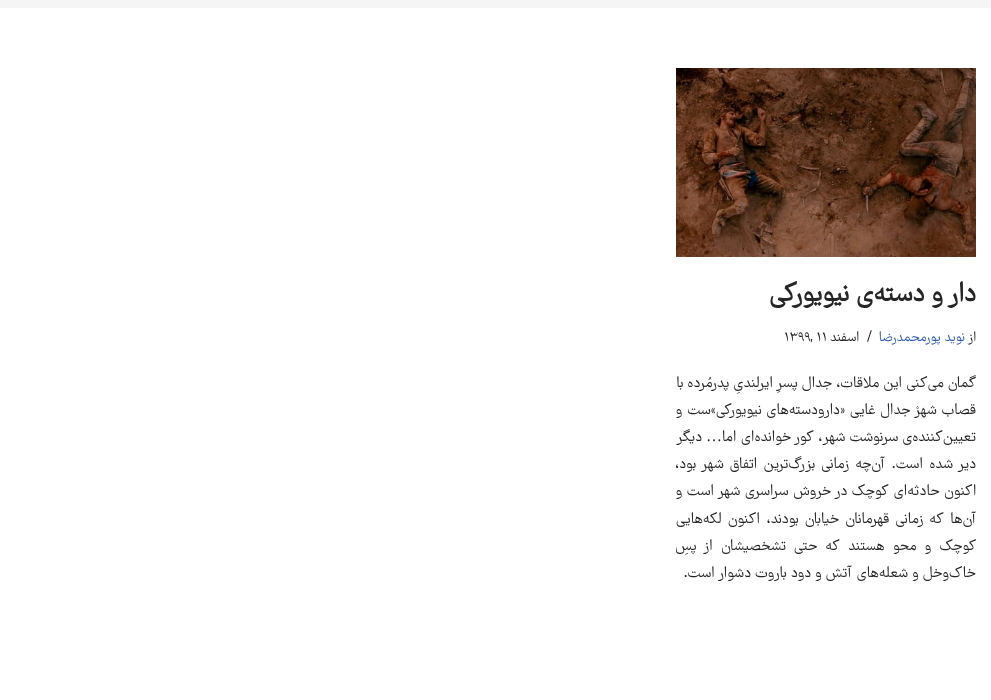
(async () => {
  const canvas = document.querySelector("canvas");
  canvas.width = 991;
  canvas.height = 700;
  const ctx = canvas.getContext("2d");
  ctx.miterLimit = 4;
  ctx.fontKerning = "normal";
  async function loadImage(src) {
    const img = new Image();
    img.src = src;
    await img.decode();
    return img;
  }

  ctx.fillStyle = "#ffffff";
  ctx.fillRect(0, 0, 991, 700);
  ctx.fillStyle = "#f5f5f5";
  ctx.fillRect(0, 0, 991, 8);
  ctx.drawImage(await loadImage("img/1.png"), 676, 68, 300, 189);
  ctx.direction = "rtl";
  ctx.font = "bold 28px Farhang";
  ctx.fillStyle = "#272626";
  ctx.fillText("دار و دسته‌ی نیویورکی", 976, 301);
  ctx.font = "14.5px Farhang";
  ctx.fillText("از", 976, 341);
  ctx.fillStyle = "#2f5aae";
  ctx.fillText("نوید پورمحمدرضا", 965, 341);
  ctx.direction = "ltr";
  ctx.fillStyle = "#272626";
  ctx.fillText("/", 867, 341);
  ctx.direction = "rtl";
  ctx.fillText("اسفند", 859, 341);
  ctx.direction = "ltr";
  ctx.fillText("۱۳۹۹, ۱۱", 784, 341);
  ctx.direction = "rtl";
  ctx.font = "16px Farhang";
  ctx.fillText("گمان می‌کنی این ملاقات، جدال پسرِ ایرلندیِ پدرمُرده با", 976, 387);
  ctx.wordSpacing = "0.75px";
  ctx.fillText("قصاب شهرْ جدال غایی «دارودسته‌های نیویورکی»ست و", 976, 414);
  ctx.wordSpacing = "0px";
  ctx.fillText("تعیین‌کننده‌ی سرنوشت شهر، کور خوانده‌ای اما", 976, 441);
  ctx.font = "16px Liberation Serif";
  ctx.fillText("…", 722, 441);
  ctx.font = "16px Farhang";
  ctx.fillText("دیگر", 702, 441);
  ctx.wordSpacing = "2px";
  ctx.fillText("دیر شده است. آن‌چه زمانی بزرگ‌ترین اتفاق شهر بود،", 976, 468);
  ctx.wordSpacing = "0.5px";
  ctx.fillText("اکنون حادثه‌ای کوچک در خروش سراسری شهر است و", 976, 495);
  ctx.wordSpacing = "2px";
  ctx.fillText("آن‌ها که زمانی قهرمانان خیابان‌ بودند، اکنون لکه‌هایی", 976, 523);
  ctx.wordSpacing = "4px";
  ctx.fillText("کوچک و محو هستند که حتی تشخصیشان از پسِ", 976, 550);
  ctx.wordSpacing = "0px";
  ctx.fillText("خاک‌وخل و شعله‌های آتش و دود باروت دشوار است.", 976, 577);
})();
